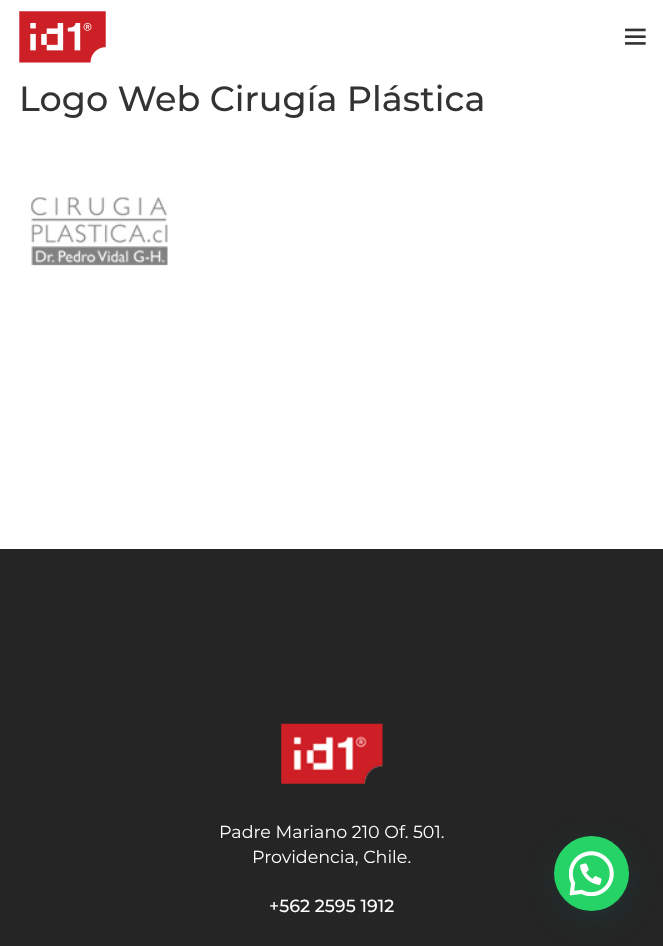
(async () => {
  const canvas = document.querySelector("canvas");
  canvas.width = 663;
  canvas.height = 946;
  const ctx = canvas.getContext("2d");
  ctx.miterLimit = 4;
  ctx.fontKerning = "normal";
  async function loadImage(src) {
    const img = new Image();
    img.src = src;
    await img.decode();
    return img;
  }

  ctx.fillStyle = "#ffffff";
  ctx.fillRect(0, 0, 663, 946);
  ctx.drawImage(await loadImage("img/1.png"), 19, 11, 87, 52);
  ctx.drawImage(await loadImage("img/2.png"), 625, 28, 21, 17);
  ctx.drawImage(await loadImage("img/3.png"), 31, 197, 137, 69);
  ctx.fillStyle = "#252525";
  ctx.fillRect(0, 549, 663, 397);
  ctx.drawImage(await loadImage("img/4.png"), 281, 723, 102, 61);
  ctx.fillStyle = "rgba(7, 94, 84, 0.24)";
  ctx.filter = "blur(15px)";
  ctx.beginPath();
  ctx.roundRect(555, 844, 75, 75, 37.5);
  ctx.fill();
  ctx.filter = "none";
  ctx.fillStyle = "#25d366";
  ctx.beginPath();
  ctx.arc(591.5, 873.5, 37.5, 0, Math.PI * 2);
  ctx.fill();
  ctx.drawImage(await loadImage("img/5.png"), 569, 851, 45, 45);
  ctx.font = "500 35px Montserrat";
  ctx.fillStyle = "#333333";
  ctx.fillText("Logo Web Cirugía Plástica", 19, 111);
  ctx.font = "17.5px Montserrat";
  ctx.fillStyle = "#ffffff";
  ctx.fillText("Padre Mariano 210 Of. 501.", 219, 838);
  ctx.fillText("Providencia, Chile.", 252, 863);
  ctx.font = "500 17.5px Montserrat";
  ctx.fillText("+562 2595 1912", 269, 912);
})();
